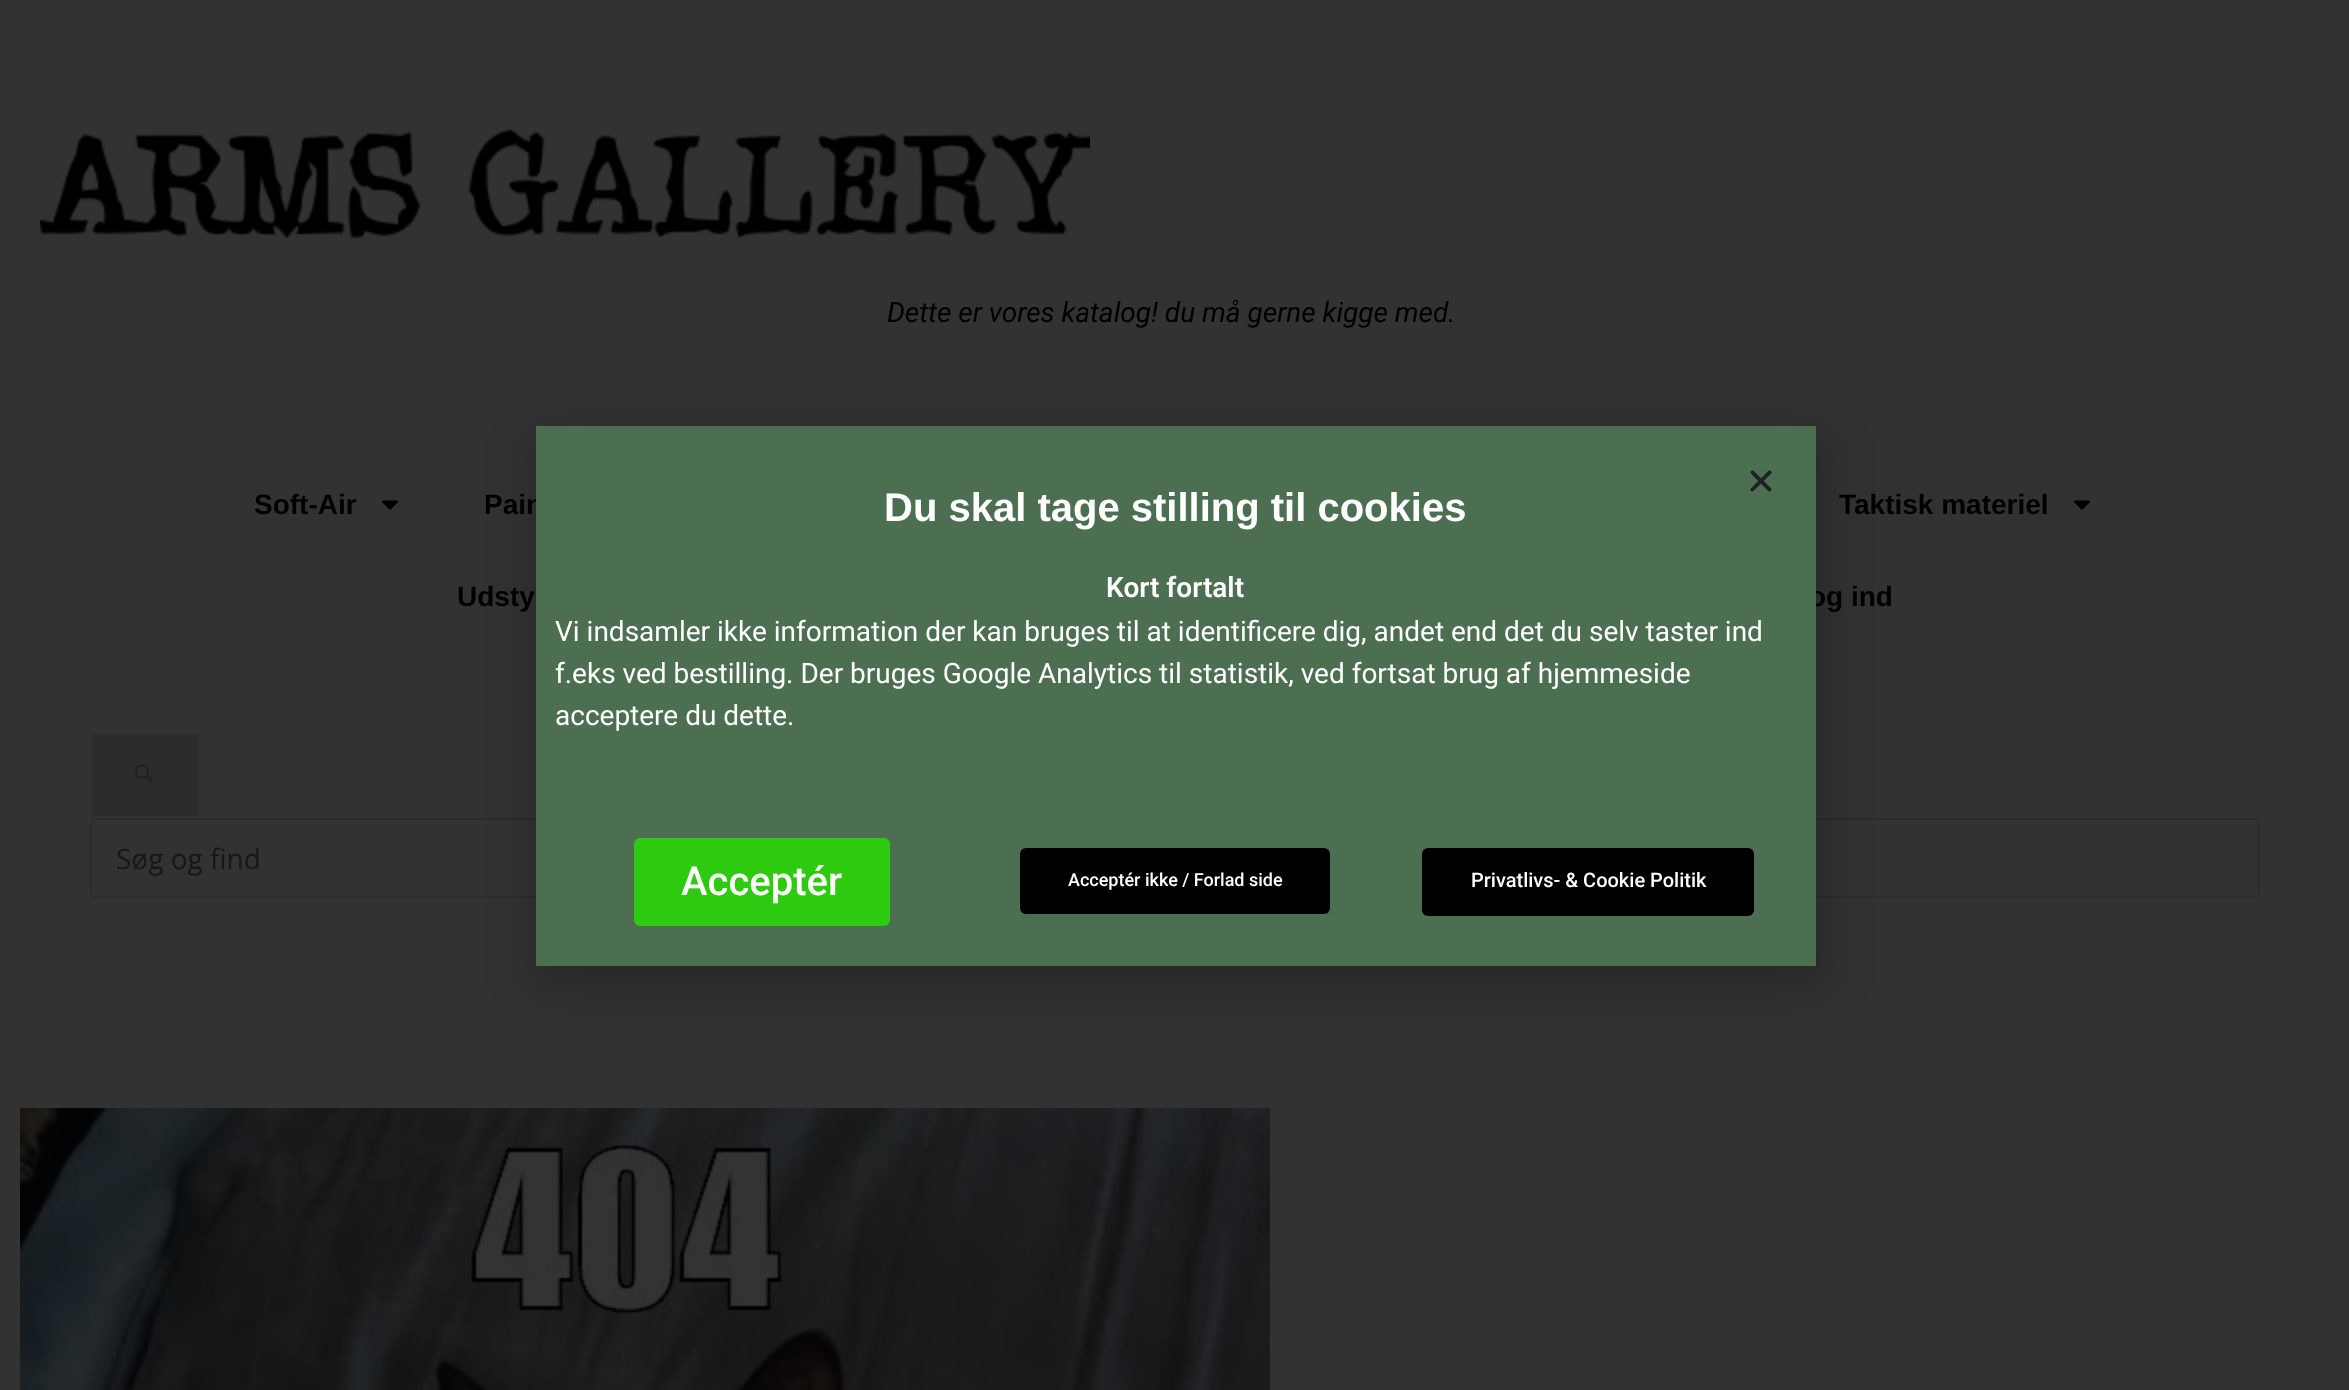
(async () => {
  const canvas = document.querySelector("canvas");
  canvas.width = 2349;
  canvas.height = 1390;
  const ctx = canvas.getContext("2d");
  ctx.miterLimit = 4;
  ctx.fontKerning = "normal";
  async function loadImage(src) {
    const img = new Image();
    img.src = src;
    await img.decode();
    return img;
  }

  ctx.fillStyle = "#323232";
  ctx.fillRect(0, 0, 2349, 1390);
  ctx.drawImage(await loadImage("img/1.png"), 40, 130, 1050, 108);
  ctx.drawImage(await loadImage("img/2.png"), 381, 500, 18, 10);
  ctx.drawImage(await loadImage("img/2.png"), 2073, 500, 18, 10);
  ctx.fillStyle = "#2c2c2c";
  ctx.fillRect(92, 734, 106, 82);
  ctx.drawImage(await loadImage("img/3.png"), 135, 765, 18, 17);
  ctx.beginPath();
  ctx.roundRect(91, 819, 2168, 78, 5);
  ctx.strokeStyle = "#2c2c2c";
  ctx.lineWidth = 2;
  ctx.stroke();
  ctx.drawImage(await loadImage("img/4.png"), 20, 1108, 1250, 282);
  ctx.fillStyle = "rgba(0, 0, 0, 0.2)";
  ctx.filter = "blur(23px)";
  ctx.beginPath();
  ctx.rect(534, 436, 1292, 552);
  ctx.fill();
  ctx.filter = "none";
  ctx.font = "italic 28px Roboto";
  ctx.fillStyle = "#000000";
  ctx.fillText("Dette er vores katalog! du må gerne kigge med.", 887, 322);
  ctx.font = "bold 28px Liberation Sans";
  for (const [text, x, y] of [
    ["Soft-Air", 254, 514],
    ["Pain", 484, 514],
    ["Taktisk materiel", 1839, 514],
    ["Udsty", 457, 606],
    ["og ind", 1809, 606],
  ]) {
    ctx.fillText(text, x, y);
  }
  ctx.font = "28px Open Sans";
  ctx.fillStyle = "#171717";
  ctx.fillText("Søg og find", 116, 869);
  ctx.fillStyle = "#4c6e51";
  ctx.fillRect(536, 426, 1280, 540);
  ctx.drawImage(await loadImage("img/5.png"), 1750, 470, 22, 22);
  ctx.font = "bold 40px Liberation Sans";
  ctx.fillStyle = "#ffffff";
  ctx.fillText("Du skal tage stilling til cookies", 884, 521);
  ctx.font = "600 28px Roboto";
  ctx.fillText("Kort fortalt", 1106, 597);
  ctx.font = "28px Roboto";
  for (const [text, x, y] of [
    ["Vi indsamler ikke information der kan bruges til at identificere dig, andet end det du selv taster ind", 555, 641],
    ["f.eks ved bestilling. Der bruges Google Analytics til statistik, ved fortsat brug af hjemmeside", 555, 683],
    ["acceptere du dette.", 555, 725],
  ]) {
    ctx.fillText(text, x, y);
  }
  ctx.fillStyle = "#2dca0f";
  ctx.beginPath();
  ctx.roundRect(634, 838, 256, 88, 6);
  ctx.fill();
  ctx.font = "500 40px Roboto";
  ctx.fillStyle = "#ffffff";
  ctx.fillText("Acceptér", 681, 895);
  ctx.fillStyle = "#000000";
  ctx.beginPath();
  ctx.roundRect(1020, 848, 310, 66, 6);
  ctx.fill();
  ctx.font = "500 18px Roboto";
  ctx.fillStyle = "#ffffff";
  ctx.fillText("Acceptér ikke / Forlad side", 1068, 886);
  ctx.fillStyle = "#000000";
  ctx.beginPath();
  ctx.roundRect(1422, 848, 332, 68, 6);
  ctx.fill();
  ctx.font = "500 20px Roboto";
  ctx.fillStyle = "#ffffff";
  ctx.fillText("Privatlivs- & Cookie Politik", 1471, 887);
})();
